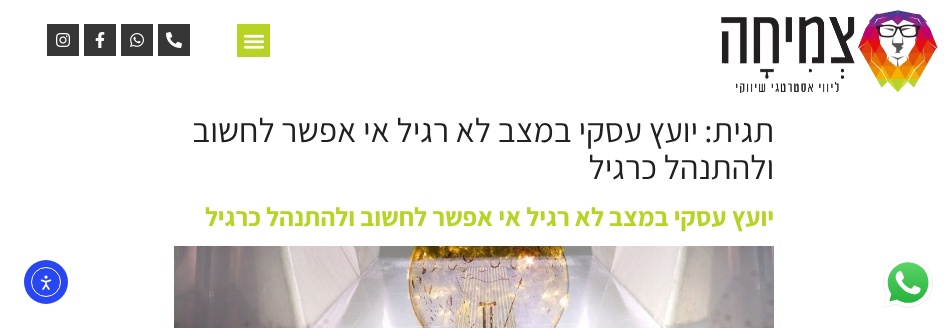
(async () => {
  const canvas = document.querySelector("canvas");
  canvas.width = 948;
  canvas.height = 328;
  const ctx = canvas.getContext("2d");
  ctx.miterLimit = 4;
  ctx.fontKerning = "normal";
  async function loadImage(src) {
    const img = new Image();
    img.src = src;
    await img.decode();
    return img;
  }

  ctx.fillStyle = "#ffffff";
  ctx.fillRect(0, 0, 948, 328);
  ctx.drawImage(await loadImage("img/1.png"), 721, 10, 217, 83);
  ctx.fillStyle = "#b7d326";
  ctx.fillRect(237, 24, 33, 33);
  ctx.drawImage(await loadImage("img/2.png"), 243, 34, 22, 15);
  ctx.fillStyle = "#363636";
  ctx.fillRect(158, 24, 32, 32);
  ctx.drawImage(await loadImage("img/3.png"), 166, 32, 16, 16);
  ctx.fillRect(121, 24, 32, 32);
  ctx.drawImage(await loadImage("img/4.png"), 130, 33, 14, 14);
  ctx.fillRect(84, 24, 32, 32);
  ctx.drawImage(await loadImage("img/5.png"), 95, 32, 10, 16);
  ctx.fillRect(47, 24, 32, 32);
  ctx.drawImage(await loadImage("img/6.png"), 56, 33, 14, 14);
  ctx.drawImage(await loadImage("img/7.png"), 174, 246, 600, 82);
  ctx.drawImage(await loadImage("img/8.png"), 883, 258, 50, 50);
  ctx.fillStyle = "#2847f3";
  ctx.beginPath();
  ctx.arc(46, 282, 22, 0, Math.PI * 2);
  ctx.fill();
  ctx.beginPath();
  ctx.arc(46, 282, 14.5, 0, Math.PI * 2);
  ctx.strokeStyle = "#ffffff";
  ctx.stroke();
  ctx.drawImage(await loadImage("img/9.png"), 40, 275, 12, 15);
  ctx.direction = "rtl";
  ctx.font = "34px Assistant";
  ctx.fillStyle = "#202020";
  for (const [text, x, y] of [
    ["תגית:", 774, 142],
    ["יועץ עסקי במצב לא רגיל אי אפשר לחשוב", 698, 142],
    ["ולהתנהל כרגיל", 774, 179],
  ]) {
    ctx.fillText(text, x, y);
  }
  ctx.font = "bold 26px Assistant";
  ctx.fillStyle = "#b7d326";
  ctx.fillText("יועץ עסקי במצב לא רגיל אי אפשר לחשוב ולהתנהל כרגיל", 774, 226);
})();
